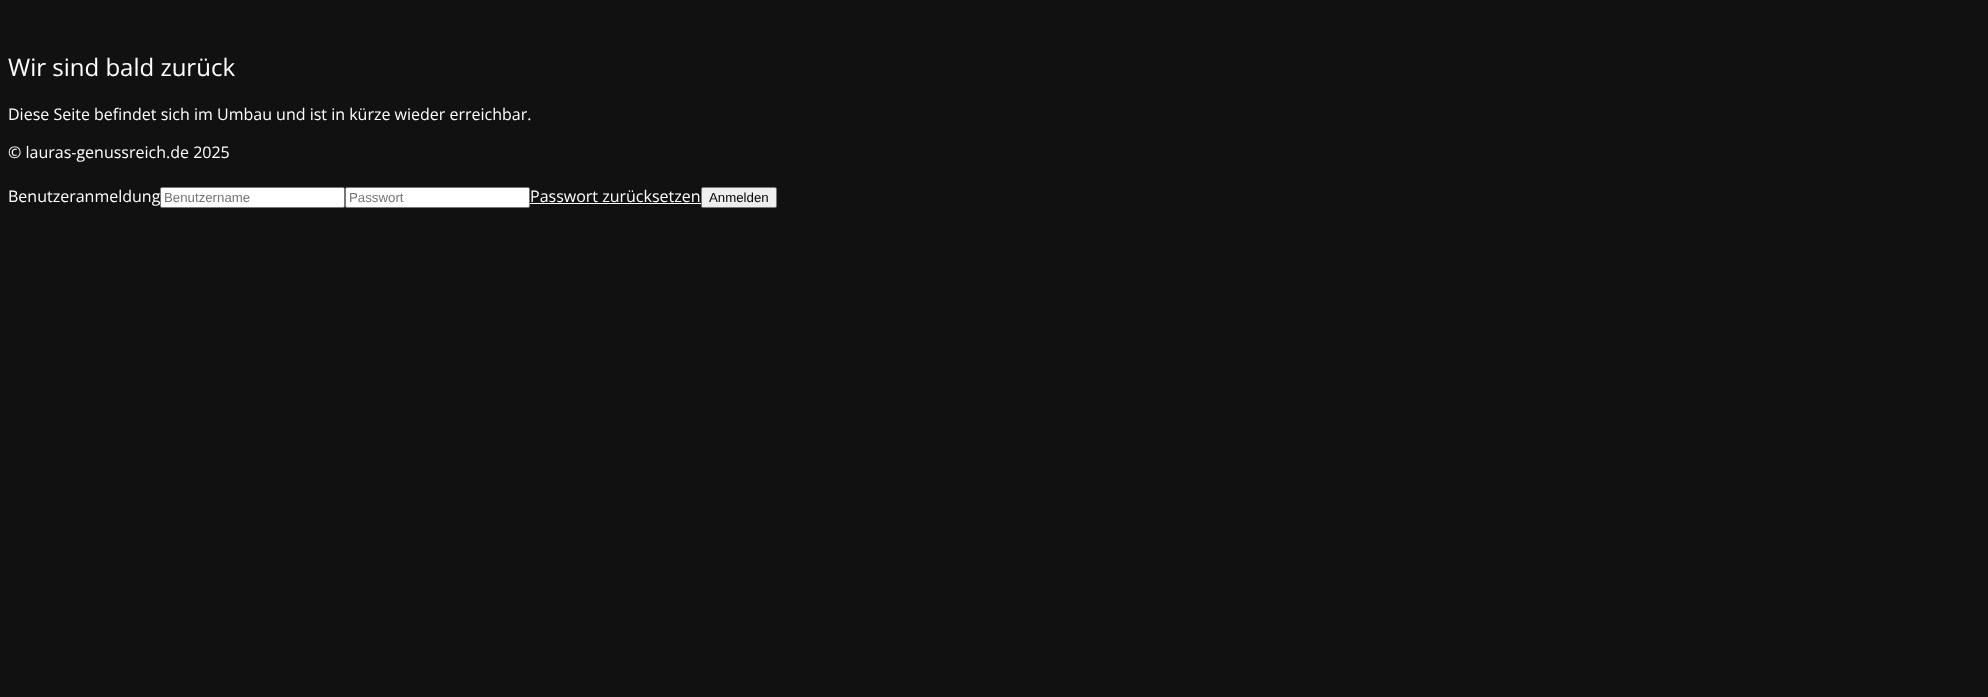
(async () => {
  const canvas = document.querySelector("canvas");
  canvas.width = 1988;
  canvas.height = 697;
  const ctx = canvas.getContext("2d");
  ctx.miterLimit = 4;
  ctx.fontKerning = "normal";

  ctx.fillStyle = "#111111";
  ctx.fillRect(0, 0, 1988, 697);
  ctx.fillStyle = "#ffffff";
  ctx.beginPath();
  ctx.roundRect(160.5, 187.5, 184, 20, 1.5);
  ctx.fill();
  ctx.strokeStyle = "#767676";
  ctx.stroke();
  ctx.beginPath();
  ctx.roundRect(345.5, 187.5, 184, 20, 1.5);
  ctx.fill();
  ctx.stroke();
  ctx.fillRect(530, 203, 171, 1);
  ctx.fillStyle = "#efefef";
  ctx.beginPath();
  ctx.roundRect(701.5, 187.5, 75, 20, 1.5);
  ctx.fill();
  ctx.stroke();
  ctx.font = "24px Open Sans";
  ctx.fillStyle = "#ffffff";
  ctx.fillText("Wir sind bald zurück", 8, 76);
  ctx.font = "16px Open Sans";
  for (const [text, x, y] of [
    ["Diese Seite befindet sich im Umbau und ist in kürze wieder erreichbar.", 8, 120],
    ["© lauras-genussreich.de 2025", 8, 158],
    ["Benutzeranmeldung", 8, 202],
  ]) {
    ctx.fillText(text, x, y);
  }
  ctx.font = "13.25px Liberation Sans";
  ctx.fillStyle = "#757575";
  ctx.fillText("Benutzername", 164, 202);
  ctx.fillText("Passwort", 349, 202);
  ctx.font = "16px Open Sans";
  ctx.fillStyle = "#ffffff";
  ctx.fillText("Passwort zurücksetzen", 530, 202);
  ctx.font = "13.25px Liberation Sans";
  ctx.fillStyle = "#000000";
  ctx.fillText("Anmelden", 709, 202);
})();
